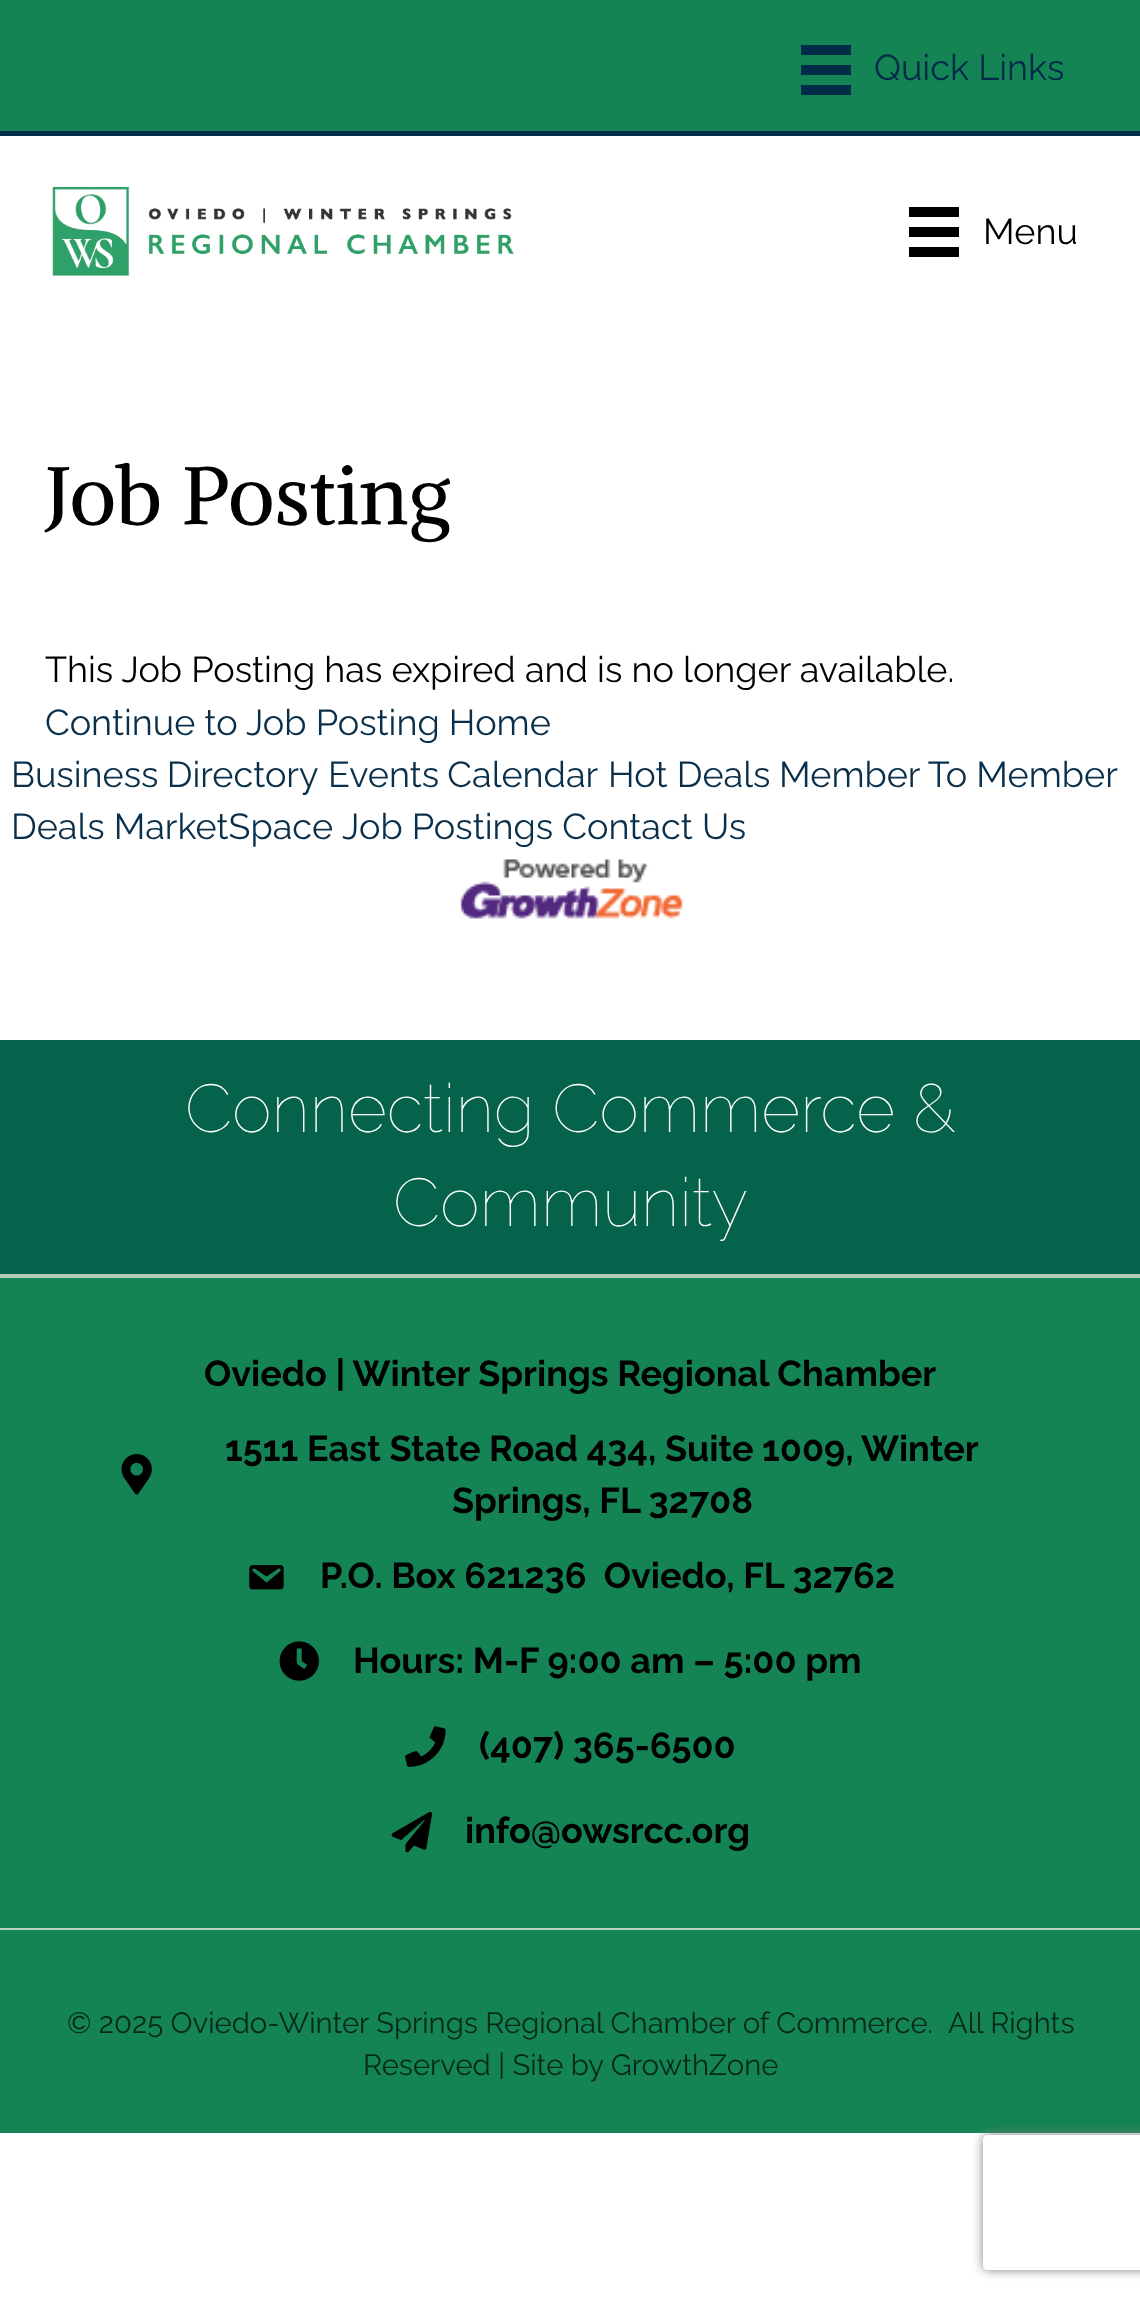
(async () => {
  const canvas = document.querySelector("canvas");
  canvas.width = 1140;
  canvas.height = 2300;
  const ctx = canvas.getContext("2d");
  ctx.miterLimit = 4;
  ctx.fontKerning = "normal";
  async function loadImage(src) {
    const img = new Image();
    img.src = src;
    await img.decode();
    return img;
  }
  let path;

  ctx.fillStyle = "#ffffff";
  ctx.fillRect(0, 0, 1140, 2300);
  for (const [x, y, w, h, color] of [
    [0, 0, 1140, 131, "#158455"],
    [801, 45, 50, 10, "#002b49"],
    [801, 65, 50, 10, "#002b49"],
    [801, 85, 50, 10, "#002b49"],
    [0, 131, 1140, 5, "#002b49"],
  ]) {
    ctx.fillStyle = color;
    ctx.fillRect(x, y, w, h);
  }
  ctx.drawImage(await loadImage("img/1.png"), 52, 186, 462, 90);
  for (const [x, y, w, h, color] of [
    [909, 207, 50, 10, "#000000"],
    [909, 227, 50, 10, "#000000"],
    [909, 247, 50, 10, "#000000"],
  ]) {
    ctx.fillStyle = color;
    ctx.fillRect(x, y, w, h);
  }
  ctx.drawImage(await loadImage("img/2.png"), 460, 859, 223, 60);
  for (const [x, y, w, h, color] of [
    [0, 1040, 1140, 234, "#04634a"],
    [0, 1274, 1140, 4, "#b5ccb8"],
    [0, 1278, 1140, 650, "#158455"],
  ]) {
    ctx.fillStyle = color;
    ctx.fillRect(x, y, w, h);
  }
  ctx.drawImage(await loadImage("img/3.png"), 121, 1454, 31, 41);
  ctx.drawImage(await loadImage("img/4.png"), 249, 1565, 35, 25);
  ctx.drawImage(await loadImage("img/5.png"), 279, 1641, 40, 40);
  ctx.drawImage(await loadImage("img/6.png"), 405, 1726, 41, 41);
  ctx.drawImage(await loadImage("img/7.png"), 391, 1811, 42, 42);
  ctx.fillRect(0, 1930, 1140, 203);
  ctx.fillStyle = "#b9d4bb";
  ctx.fillRect(0, 1928, 1140, 2);
  ctx.save();
  path = new Path2D("M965 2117H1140V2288H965ZM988 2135H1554C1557 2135 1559 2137 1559 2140V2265C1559 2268 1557 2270 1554 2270H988C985 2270 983 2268 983 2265V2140C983 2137 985 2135 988 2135Z");
  ctx.clip(path, "evenodd");
  ctx.fillStyle = "#808080";
  ctx.filter = "blur(5.5px)";
  ctx.beginPath();
  ctx.roundRect(983, 2135, 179, 135, 5);
  ctx.fill();
  ctx.filter = "none";
  ctx.restore();
  ctx.font = "36px Raleway";
  ctx.fillStyle = "#002b49";
  ctx.fillText("Quick Links", 874, 80);
  ctx.fillStyle = "#000000";
  ctx.fillText("Menu", 983, 244);
  ctx.font = "81px Alike";
  ctx.fillText("Job Posting", 45, 524);
  ctx.font = "36px Raleway";
  ctx.fillText("This Job Posting has expired and is no longer available.", 45, 682);
  ctx.fillStyle = "#092f4b";
  ctx.fillText("Continue to Job Posting Home", 45, 735);
  ctx.wordSpacing = "-1px";
  ctx.fillText("Business Directory", 11, 787);
  ctx.fillText("Events Calendar", 328, 787);
  ctx.wordSpacing = "0px";
  for (const [text, x, y] of [
    ["Hot Deals", 608, 787],
    ["Member To Member", 779, 787],
    ["Deals MarketSpace", 11, 839],
    ["Job Postings Contact Us", 342, 839],
  ]) {
    ctx.fillText(text, x, y);
  }
  ctx.font = "100 67.5px Raleway";
  ctx.fillStyle = "#ffffff";
  ctx.fillText("Connecting Commerce &", 185, 1132);
  ctx.fillText("Community", 393, 1226);
  ctx.font = "bold 36px Raleway";
  ctx.fillStyle = "#000000";
  for (const [text, x, y] of [
    ["Oviedo | Winter Springs Regional Chamber", 204, 1386],
    ["1511 East State Road 434, Suite 1009, Winter", 225, 1461],
    ["Springs, FL 32708", 452, 1513],
    ["P.O. Box 621236  Oviedo, FL 32762", 320, 1588],
    ["Hours: M-F 9:00 am – 5:00 pm", 353, 1673],
    ["(407) 365-6500", 479, 1758],
    ["info@owsrcc.org", 465, 1843],
  ]) {
    ctx.fillText(text, x, y);
  }
  ctx.font = "29.25px Raleway";
  ctx.fillStyle = "#06281a";
  for (const [text, x, y] of [
    ["© 2025 Oviedo-Winter Springs Regional Chamber of Commerce.", 67, 2033],
    ["All Rights", 948, 2033],
    ["Reserved | Site by GrowthZone", 363, 2075],
  ]) {
    ctx.fillText(text, x, y);
  }
})();
